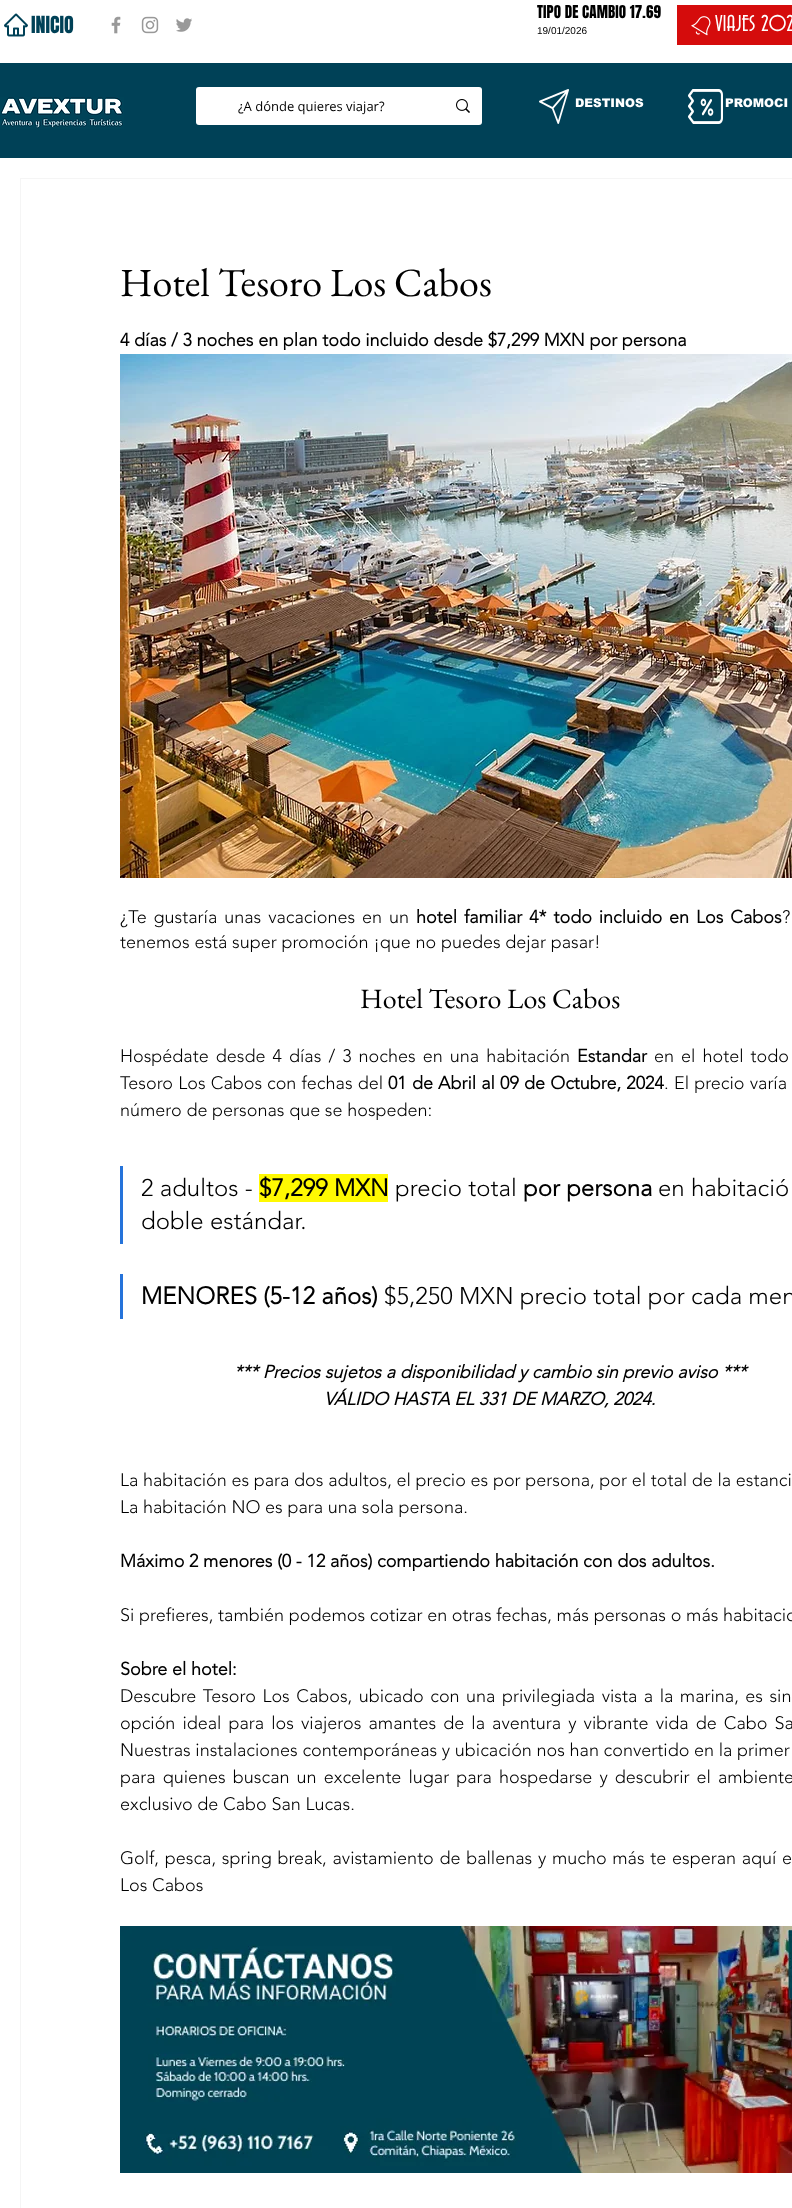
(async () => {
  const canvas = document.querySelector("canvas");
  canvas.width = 792;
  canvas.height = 2208;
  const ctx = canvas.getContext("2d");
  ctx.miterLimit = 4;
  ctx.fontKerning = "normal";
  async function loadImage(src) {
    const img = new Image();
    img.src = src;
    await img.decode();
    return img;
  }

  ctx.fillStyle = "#ffffff";
  ctx.fillRect(0, 0, 792, 2208);
  ctx.drawImage(await loadImage("img/1.png"), 4, 13, 24, 24);
  ctx.drawImage(await loadImage("img/2.png"), 111, 16, 10, 18);
  ctx.drawImage(await loadImage("img/3.png"), 141, 16, 18, 18);
  ctx.drawImage(await loadImage("img/4.png"), 176, 18, 16, 14);
  ctx.fillStyle = "#d50c0c";
  ctx.fillRect(677, 5, 115, 40);
  ctx.drawImage(await loadImage("img/5.png"), 691, 16, 20, 20);
  ctx.fillStyle = "#004157";
  ctx.fillRect(0, 63, 792, 95);
  ctx.drawImage(await loadImage("img/6.png"), 0, 97, 124, 32);
  ctx.fillStyle = "#ffffff";
  ctx.beginPath();
  ctx.roundRect(196, 87, 286, 38, 3);
  ctx.fill();
  ctx.drawImage(await loadImage("img/7.png"), 456, 99, 14, 14);
  ctx.drawImage(await loadImage("img/8.png"), 539, 89, 30, 35);
  ctx.drawImage(await loadImage("img/9.png"), 688, 89, 35, 35);
  ctx.strokeStyle = "#f5f5f5";
  ctx.strokeRect(20.5, 178.5, 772, 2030);
  ctx.drawImage(await loadImage("img/10.png"), 120, 354, 672, 524);
  for (const [x, y, w, h, color] of [
    [120, 1166, 3, 78, "#2573da"],
    [259, 1174, 129, 28, "#fff902"],
    [120, 1274, 3, 45, "#2573da"],
  ]) {
    ctx.fillStyle = color;
    ctx.fillRect(x, y, w, h);
  }
  ctx.drawImage(await loadImage("img/11.png"), 120, 1926, 672, 247);
  ctx.font = "20px Anton";
  ctx.fillStyle = "#004157";
  ctx.fillText("INICIO", 31, 33);
  ctx.letterSpacing = "0.1px";
  ctx.font = "15px Anton";
  ctx.fillStyle = "#000000";
  ctx.fillText("TIPO DE CAMBIO 17.69", 537, 18);
  ctx.letterSpacing = "0px";
  ctx.font = "10px Liberation Sans";
  ctx.fillText("19/01/2026", 537, 34);
  ctx.font = "24px 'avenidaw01'";
  ctx.fillStyle = "#ffffff";
  ctx.fillText("VIAJES 202", 715, 31);
  ctx.font = "13px Open Sans";
  ctx.fillStyle = "#000000";
  ctx.fillText("¿A dónde quieres viajar?", 238, 111);
  ctx.font = "900 12px arial";
  ctx.fillStyle = "#ffffff";
  ctx.fillText("DESTINOS", 575, 107);
  ctx.fillText("PROMOCI", 725, 107);
  ctx.font = "40px EB Garamond";
  ctx.fillStyle = "#000000";
  ctx.fillText("Hotel Tesoro Los Cabos", 120, 296);
  ctx.font = "bold 18px 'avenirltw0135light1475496'";
  ctx.fillText("4 días / 3 noches en plan todo incluido desde $7,299 MXN por persona", 120, 346);
  ctx.wordSpacing = "2.25px";
  ctx.font = "300 18px 'avenirltw0135light1475496'";
  ctx.fillText("¿Te gustaría unas vacaciones en un", 120, 923);
  ctx.font = "bold 18px 'avenirltw0135light1475496'";
  ctx.fillText("hotel familiar 4* todo incluido en Los Cabos", 416, 923);
  ctx.font = "300 18px 'avenirltw0135light1475496'";
  ctx.fillText("?", 782, 923);
  ctx.wordSpacing = "0px";
  ctx.fillText("tenemos está super promoción ¡que no puedes dejar pasar!", 120, 948);
  ctx.font = "28px EB Garamond";
  ctx.fillText("Hotel Tesoro Los Cabos", 360, 1008);
  ctx.wordSpacing = "2.4px";
  ctx.font = "300 18px 'avenirltw0135light1475496'";
  ctx.fillText("Hospédate desde 4 días / 3 noches en una habitación", 120, 1062);
  ctx.wordSpacing = "0px";
  ctx.font = "bold 18px 'avenirltw0135light1475496'";
  ctx.fillText("Estandar", 577, 1062);
  ctx.wordSpacing = "2.4px";
  ctx.font = "300 18px 'avenirltw0135light1475496'";
  ctx.fillText("en el hotel todo", 654, 1062);
  ctx.wordSpacing = "0.5px";
  ctx.fillText("Tesoro Los Cabos", 120, 1089);
  ctx.fillText("con fechas del", 267, 1089);
  ctx.font = "bold 18px 'avenirltw0135light1475496'";
  ctx.fillText("01 de Abril al 09 de Octubre, 2024", 388, 1089);
  ctx.wordSpacing = "0px";
  ctx.font = "300 18px 'avenirltw0135light1475496'";
  ctx.fillText(".", 664, 1089);
  ctx.wordSpacing = "0.5px";
  ctx.fillText("El precio varía", 674, 1089);
  ctx.wordSpacing = "0px";
  ctx.fillText("número de personas que se hospeden:", 120, 1116);
  ctx.font = "300 24px 'avenirltw0135light1475496'";
  ctx.fillText("2 adultos -", 141, 1196);
  ctx.font = "bold 24px 'avenirltw0135light1475496'";
  ctx.fillText("$7,299 MXN", 259, 1196);
  ctx.font = "300 24px 'avenirltw0135light1475496'";
  ctx.fillText("precio total", 395, 1196);
  ctx.font = "bold 24px 'avenirltw0135light1475496'";
  ctx.fillText("por persona", 523, 1196);
  ctx.font = "300 24px 'avenirltw0135light1475496'";
  ctx.fillText("en habitació", 658, 1196);
  ctx.fillText("doble estándar.", 141, 1229);
  ctx.font = "bold 24px 'avenirltw0135light1475496'";
  ctx.fillText("MENORES (5-12 años)", 141, 1304);
  ctx.font = "300 24px 'avenirltw0135light1475496'";
  ctx.fillText("$5,250 MXN precio total por cada men", 384, 1304);
  ctx.font = "italic bold 18px 'avenirltw0135light1475496'";
  ctx.fillText("*** Precios sujetos a disponibilidad y cambio sin previo aviso ***", 234, 1378);
  ctx.fillText("VÁLIDO HASTA EL 331 DE MARZO, 2024.", 324, 1405);
  ctx.font = "300 18px 'avenirltw0135light1475496'";
  ctx.fillText("La habitación es para dos adultos, el precio es por persona, por el total de la estanci", 120, 1486);
  ctx.fillText("La habitación NO es para una sola persona.", 120, 1513);
  ctx.font = "bold 18px 'avenirltw0135light1475496'";
  ctx.fillText("Máximo 2 menores (0 - 12 años) compartiendo habitación con dos adultos.", 120, 1567);
  ctx.font = "300 18px 'avenirltw0135light1475496'";
  ctx.fillText("Si prefieres, también podemos cotizar en otras fechas, más personas o más habitacio", 120, 1621);
  ctx.font = "bold 18px 'avenirltw0135light1475496'";
  ctx.fillText("Sobre el hotel:", 120, 1675);
  ctx.wordSpacing = "1.8px";
  ctx.font = "300 18px 'avenirltw0135light1475496'";
  ctx.fillText("Descubre Tesoro Los Cabos, ubicado con una privilegiada vista a la marina, es sin", 120, 1702);
  ctx.wordSpacing = "2.4px";
  ctx.fillText("opción ideal para los viajeros amantes de la aventura y vibrante vida de Cabo Sa", 120, 1729);
  ctx.wordSpacing = "0px";
  ctx.fillText("Nuestras instalaciones contemporáneas y ubicación nos han convertido en la primer", 120, 1756);
  ctx.wordSpacing = "2.4px";
  ctx.fillText("para quienes buscan un excelente lugar para hospedarse y descubrir el ambiente", 120, 1783);
  ctx.wordSpacing = "0px";
  ctx.fillText("exclusivo de Cabo San Lucas.", 120, 1810);
  ctx.wordSpacing = "1px";
  ctx.fillText("Golf, pesca, spring break, avistamiento de ballenas y mucho más te esperan aquí e", 120, 1864);
  ctx.wordSpacing = "0px";
  ctx.fillText("Los Cabos", 120, 1891);
})();
